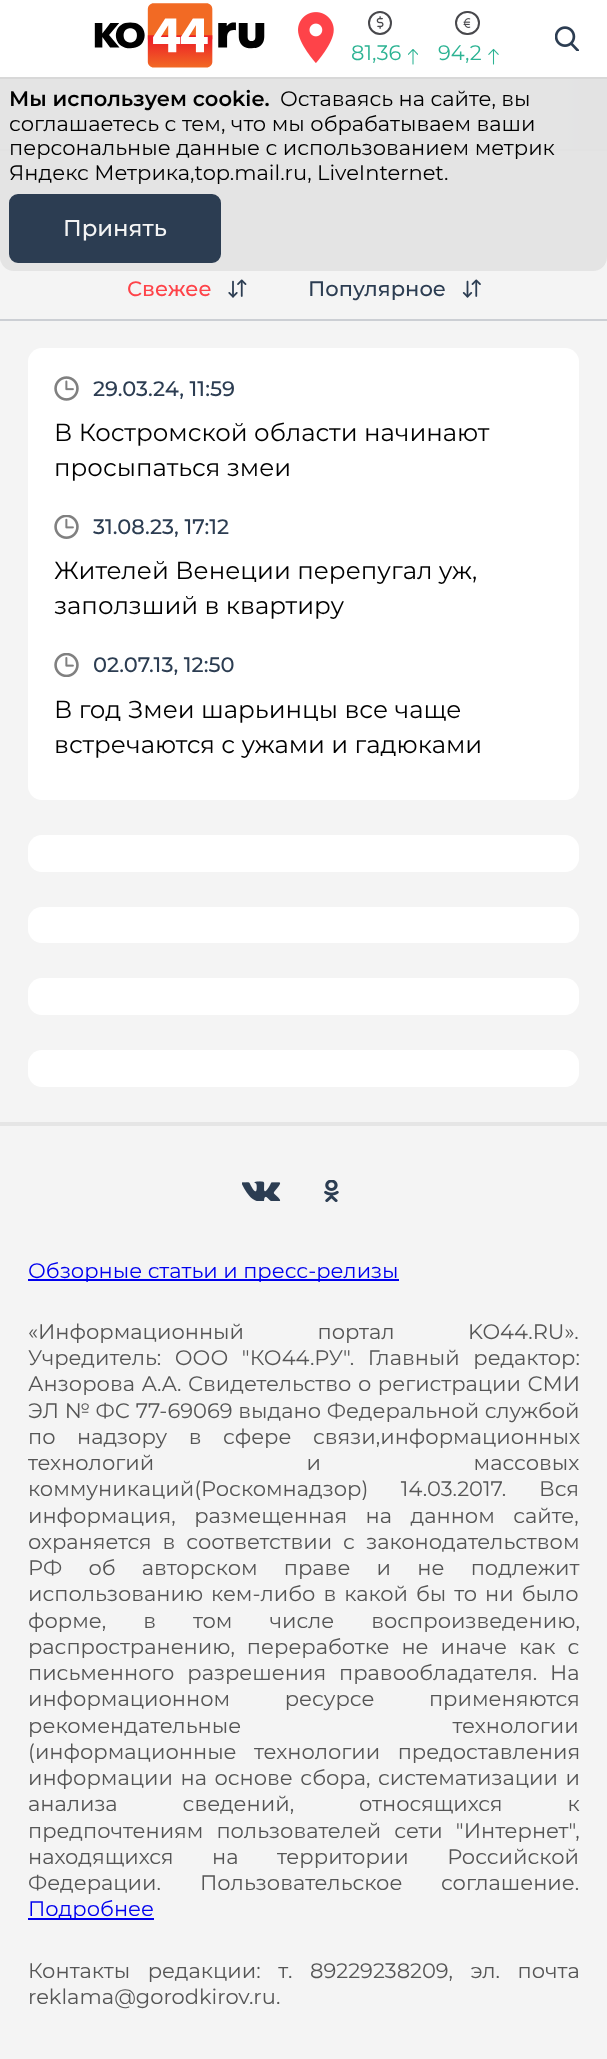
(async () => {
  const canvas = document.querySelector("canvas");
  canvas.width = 607;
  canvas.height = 2059;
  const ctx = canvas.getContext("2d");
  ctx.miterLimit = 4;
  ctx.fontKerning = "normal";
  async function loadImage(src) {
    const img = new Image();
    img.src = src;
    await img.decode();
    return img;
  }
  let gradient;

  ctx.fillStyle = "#f4f4f4";
  ctx.fillRect(0, 0, 607, 2059);
  ctx.fillStyle = "#ffffff";
  ctx.fillRect(0, 0, 607, 77);
  ctx.fillStyle = "#d8d8d8";
  ctx.fillRect(0, 77, 607, 2);
  ctx.drawImage(await loadImage("img/1.png"), 94, 3, 171, 65);
  ctx.drawImage(await loadImage("img/2.png"), 298, 12, 36, 51);
  ctx.drawImage(await loadImage("img/3.png"), 555, 26, 24, 25);
  ctx.drawImage(await loadImage("img/4.png"), 408, 49, 10, 16);
  ctx.drawImage(await loadImage("img/5.png"), 376, 16, 8, 13);
  ctx.beginPath();
  ctx.arc(380, 23, 11, 0, Math.PI * 2);
  ctx.strokeStyle = "#48484c";
  ctx.lineWidth = 2;
  ctx.stroke();
  ctx.drawImage(await loadImage("img/6.png"), 488, 48, 11, 17);
  ctx.drawImage(await loadImage("img/7.png"), 463, 18, 8, 10);
  ctx.beginPath();
  ctx.roundRect(456, 12, 23, 22, 11);
  ctx.stroke();
  ctx.fillRect(0, 149, 607, 2);
  gradient = ctx.createLinearGradient(485, 114, 607, 114);
  gradient.addColorStop(0, "rgba(246, 246, 246, 0)");
  gradient.addColorStop(0.43, "rgba(246, 246, 246, 0.7)");
  gradient.addColorStop(0.85, "#e7e9eb");
  gradient.addColorStop(1, "#e7e9eb");
  ctx.fillStyle = gradient;
  ctx.fillRect(556, 79, 51, 70);
  ctx.fillStyle = "rgba(227, 227, 227, 0.95)";
  ctx.beginPath();
  ctx.roundRect(0, 79, 607, 192, [0, 0, 14, 14]);
  ctx.fill();
  ctx.fillStyle = "#2c3d52";
  ctx.beginPath();
  ctx.roundRect(10, 195, 210, 67, 8);
  ctx.fill();
  ctx.strokeStyle = "#2c3d52";
  ctx.stroke();
  ctx.drawImage(await loadImage("img/8.png"), 228, 279, 19, 19);
  ctx.drawImage(await loadImage("img/9.png"), 462, 279, 19, 19);
  ctx.fillStyle = "#cccfd4";
  ctx.fillRect(0, 319, 607, 2);
  ctx.fillStyle = "#ffffff";
  ctx.beginPath();
  ctx.roundRect(28, 348, 551, 452, 14);
  ctx.fill();
  ctx.drawImage(await loadImage("img/10.png"), 54, 376, 25, 25);
  ctx.drawImage(await loadImage("img/11.png"), 54, 515, 25, 24);
  ctx.drawImage(await loadImage("img/12.png"), 54, 653, 25, 24);
  ctx.beginPath();
  ctx.roundRect(28, 835, 551, 37, 14);
  ctx.fill();
  ctx.beginPath();
  ctx.roundRect(28, 907, 551, 36, 14);
  ctx.fill();
  ctx.beginPath();
  ctx.roundRect(28, 978, 551, 37, 14);
  ctx.fill();
  ctx.beginPath();
  ctx.roundRect(28, 1050, 551, 37, 14);
  ctx.fill();
  ctx.fillStyle = "#e5e5e5";
  ctx.fillRect(0, 1122, 607, 4);
  ctx.drawImage(await loadImage("img/13.png"), 242, 1181, 39, 20);
  ctx.drawImage(await loadImage("img/14.png"), 324, 1180, 15, 22);
  ctx.fillStyle = "#0000ee";
  ctx.fillRect(28, 1279, 371, 2);
  ctx.fillRect(28, 1918, 126, 2);
  ctx.font = "21px Montserrat";
  ctx.fillStyle = "#2cb393";
  ctx.fillText("81,36", 351, 60);
  ctx.fillText("94,2", 438, 60);
  ctx.font = "600 21px Montserrat";
  ctx.fillStyle = "#000000";
  ctx.fillText("Мы используем cookie.", 9, 106);
  ctx.font = "21px Montserrat";
  for (const [text, x, y] of [
    ["Оставаясь на сайте, вы", 280, 106],
    ["соглашаетесь с тем, что мы обрабатываем ваши", 9, 131],
    ["персональные данные с использованием метрик", 9, 155],
    ["Яндекс Метрика,top.mail.ru, LiveInternet.", 9, 180],
  ]) {
    ctx.fillText(text, x, y);
  }
  ctx.font = "500 22.75px Montserrat";
  ctx.fillStyle = "#f4f4f4";
  ctx.fillText("Принять", 63, 236);
  ctx.font = "500 21px Montserrat";
  ctx.fillStyle = "#fe4349";
  ctx.fillText("Свежее", 127, 296);
  ctx.fillStyle = "#2c3d52";
  ctx.fillText("Популярное", 308, 296);
  ctx.fillText("29.03.24, 11:59", 93, 396);
  ctx.font = "24.5px Montserrat";
  ctx.fillStyle = "#000000";
  ctx.fillText("В Костромской области начинают", 54, 441);
  ctx.fillText("просыпаться змеи", 54, 476);
  ctx.font = "500 21px Montserrat";
  ctx.fillStyle = "#2c3d52";
  ctx.fillText("31.08.23, 17:12", 93, 534);
  ctx.font = "24.5px Montserrat";
  ctx.fillStyle = "#000000";
  ctx.fillText("Жителей Венеции перепугал уж,", 54, 579);
  ctx.fillText("заползший в квартиру", 54, 614);
  ctx.font = "500 21px Montserrat";
  ctx.fillStyle = "#2c3d52";
  ctx.fillText("02.07.13, 12:50", 93, 672);
  ctx.font = "24.5px Montserrat";
  ctx.fillStyle = "#000000";
  ctx.fillText("В год Змеи шарьинцы все чаще", 54, 718);
  ctx.fillText("встречаются с ужами и гадюками", 54, 753);
  ctx.font = "21px Montserrat";
  ctx.fillStyle = "#0000ee";
  ctx.fillText("Обзорные статьи и пресс-релизы", 28, 1278);
  ctx.wordSpacing = "68px";
  ctx.fillStyle = "#555555";
  ctx.fillText("«Информационный портал KO44.RU».", 28, 1339);
  ctx.wordSpacing = "8px";
  ctx.fillText("Учредитель: ООО \"КО44.РУ\". Главный редактор:", 28, 1365);
  ctx.wordSpacing = "1px";
  ctx.fillText("Анзорова А.А. Свидетельство о регистрации СМИ", 28, 1391);
  ctx.wordSpacing = "0.25px";
  ctx.fillText("ЭЛ № ФС 77-69069 выдано Федеральной службой", 28, 1418);
  ctx.wordSpacing = "16px";
  ctx.fillText("по надзору в сфере связи,информационных", 28, 1444);
  ctx.wordSpacing = "147px";
  ctx.fillText("технологий и массовых", 28, 1470);
  ctx.wordSpacing = "27px";
  ctx.fillText("коммуникаций(Роскомнадзор) 14.03.2017.", 28, 1496);
  ctx.wordSpacing = "0px";
  ctx.fillText("Вся", 539, 1496);
  ctx.wordSpacing = "13px";
  ctx.fillText("информация, размещенная на данном сайте,", 28, 1523);
  ctx.wordSpacing = "5.5px";
  ctx.fillText("охраняется в соответствии с законодательством", 28, 1549);
  ctx.wordSpacing = "20.75px";
  ctx.fillText("РФ об авторском праве и не подлежит", 28, 1575);
  ctx.wordSpacing = "2.5px";
  ctx.fillText("использованию кем-либо в какой бы то ни было", 28, 1601);
  ctx.wordSpacing = "31.5px";
  ctx.fillText("форме, в том числе воспроизведению,", 28, 1628);
  ctx.wordSpacing = "6.5px";
  ctx.fillText("распространению, переработке не иначе как с", 28, 1654);
  ctx.wordSpacing = "7.5px";
  ctx.fillText("письменного разрешения правообладателя.", 28, 1680);
  ctx.wordSpacing = "0px";
  ctx.fillText("На", 550, 1680);
  ctx.wordSpacing = "49px";
  ctx.fillText("информационном ресурсе применяются", 28, 1706);
  ctx.wordSpacing = "206px";
  ctx.fillText("рекомендательные технологии", 28, 1733);
  ctx.wordSpacing = "12px";
  ctx.fillText("(информационные технологии предоставления", 28, 1759);
  ctx.wordSpacing = "2px";
  ctx.fillText("информации на основе сбора, систематизации и", 28, 1785);
  ctx.wordSpacing = "59.5px";
  ctx.fillText("анализа сведений, относящихся к", 28, 1811);
  ctx.wordSpacing = "7.5px";
  ctx.fillText("предпочтениям пользователей сети \"Интернет\",", 28, 1838);
  ctx.wordSpacing = "33px";
  ctx.fillText("находящихся на территории Российской", 28, 1864);
  ctx.wordSpacing = "0px";
  ctx.fillText("Федерации.", 28, 1890);
  ctx.wordSpacing = "33px";
  ctx.fillText("Пользовательское соглашение.", 200, 1890);
  ctx.wordSpacing = "0px";
  ctx.fillStyle = "#0000ee";
  ctx.fillText("Подробнее", 28, 1916);
  ctx.wordSpacing = "12px";
  ctx.fillStyle = "#555555";
  ctx.fillText("Контакты редакции: т. 89229238209, эл. почта", 28, 1978);
  ctx.wordSpacing = "0px";
  ctx.fillText("reklama@gorodkirov.ru.", 28, 2004);
})();
